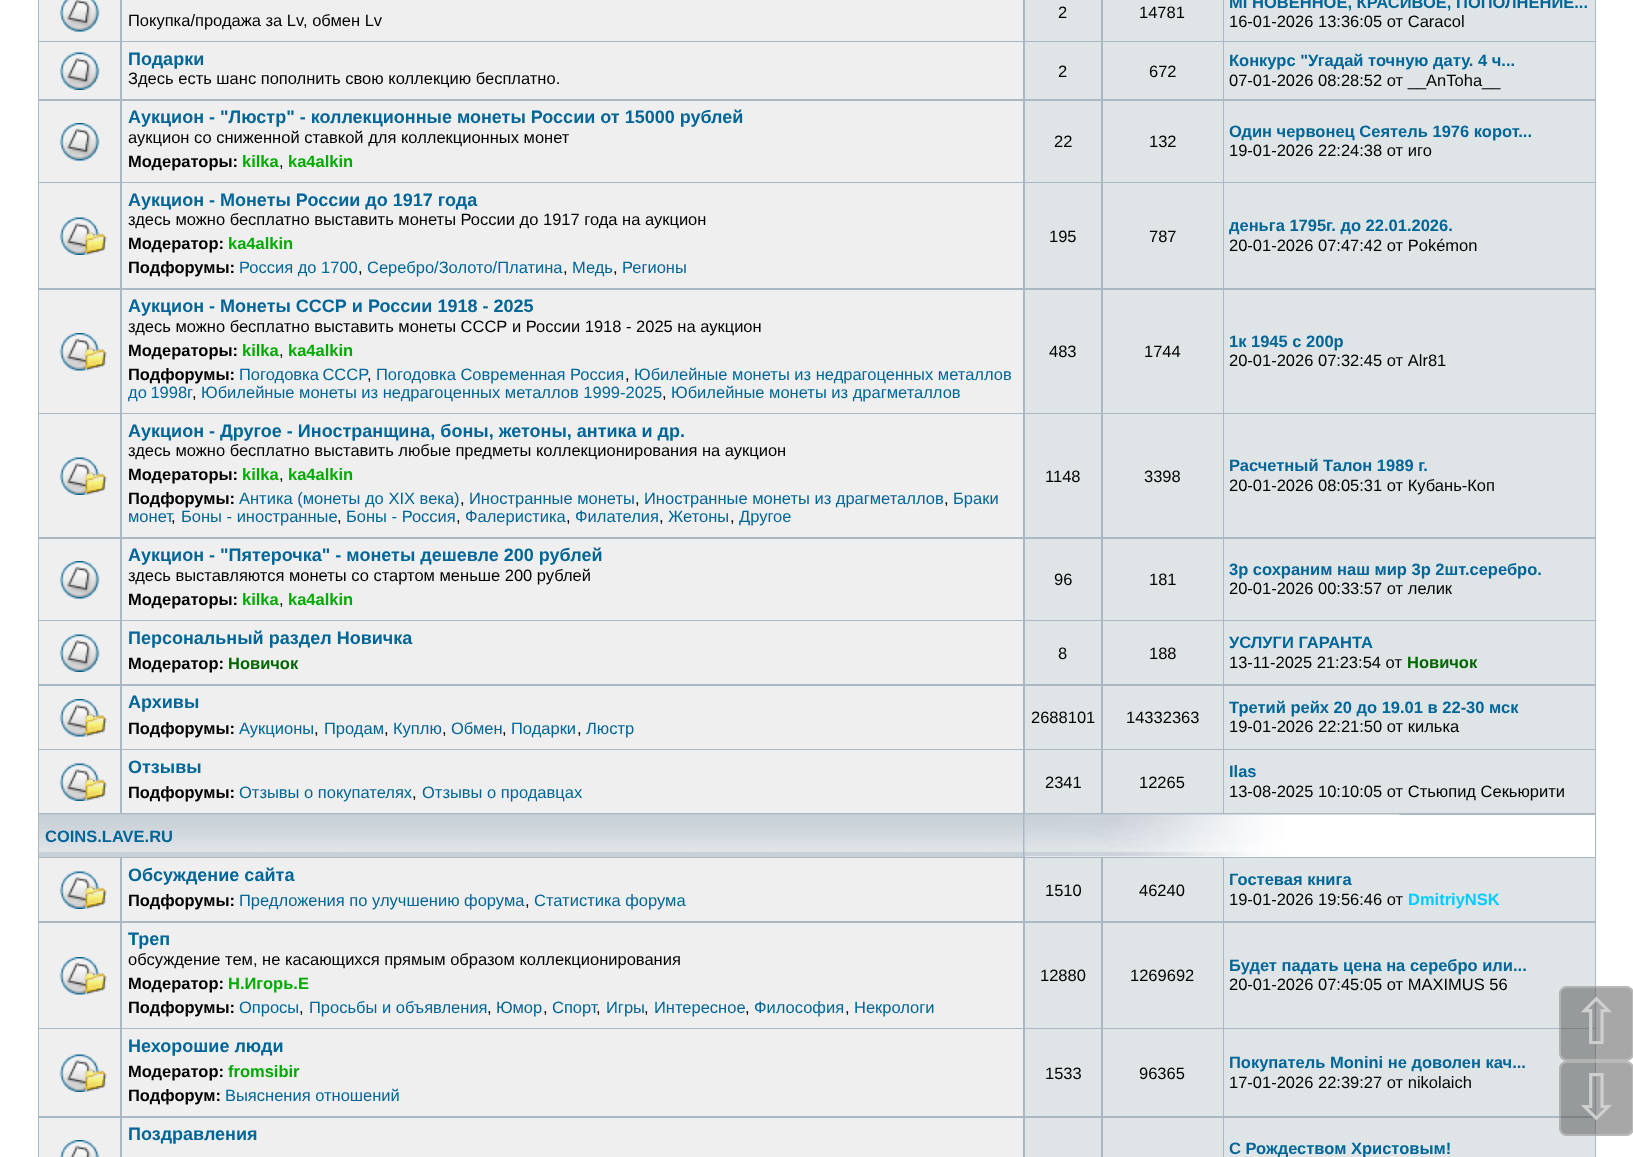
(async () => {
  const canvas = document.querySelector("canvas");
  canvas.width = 1633;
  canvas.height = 1157;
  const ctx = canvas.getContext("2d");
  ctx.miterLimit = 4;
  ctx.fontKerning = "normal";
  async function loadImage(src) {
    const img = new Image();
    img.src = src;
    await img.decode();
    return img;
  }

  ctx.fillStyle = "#ffffff";
  ctx.fillRect(0, 0, 1633, 1157);
  ctx.fillStyle = "#a9b8c2";
  ctx.fillRect(38, 0, 1558, 1157);
  ctx.fillStyle = "#efefef";
  ctx.fillRect(39, 0, 81, 41);
  ctx.drawImage(await loadImage("img/1.png"), 59, 0, 41, 32);
  for (const [x, y, w, h, color] of [
    [122, 0, 901, 41, "#efefef"],
    [1025, 0, 76, 41, "#dfe4e7"],
    [1103, 0, 120, 41, "#dfe4e7"],
    [1224, 0, 371, 41, "#dfe4e7"],
    [39, 42, 81, 57, "#efefef"],
  ]) {
    ctx.fillStyle = color;
    ctx.fillRect(x, y, w, h);
  }
  ctx.drawImage(await loadImage("img/2.png"), 59, 52, 41, 38);
  for (const [x, y, w, h, color] of [
    [122, 42, 901, 57, "#efefef"],
    [1025, 42, 76, 57, "#dfe4e7"],
    [1103, 42, 120, 57, "#dfe4e7"],
    [1224, 42, 371, 57, "#dfe4e7"],
    [39, 101, 81, 81, "#efefef"],
  ]) {
    ctx.fillStyle = color;
    ctx.fillRect(x, y, w, h);
  }
  ctx.drawImage(await loadImage("img/3.png"), 59, 123, 41, 38);
  for (const [x, y, w, h, color] of [
    [122, 101, 901, 81, "#efefef"],
    [1025, 101, 76, 81, "#dfe4e7"],
    [1103, 101, 120, 81, "#dfe4e7"],
    [1224, 101, 371, 81, "#dfe4e7"],
    [39, 183, 81, 105, "#efefef"],
  ]) {
    ctx.fillStyle = color;
    ctx.fillRect(x, y, w, h);
  }
  ctx.drawImage(await loadImage("img/4.png"), 59, 217, 48, 38);
  for (const [x, y, w, h, color] of [
    [122, 183, 901, 105, "#efefef"],
    [1025, 183, 76, 105, "#dfe4e7"],
    [1103, 183, 120, 105, "#dfe4e7"],
    [1224, 183, 371, 105, "#dfe4e7"],
    [39, 290, 81, 123, "#efefef"],
  ]) {
    ctx.fillStyle = color;
    ctx.fillRect(x, y, w, h);
  }
  ctx.drawImage(await loadImage("img/5.png"), 59, 333, 48, 38);
  for (const [x, y, w, h, color] of [
    [122, 290, 901, 123, "#efefef"],
    [1025, 290, 76, 123, "#dfe4e7"],
    [1103, 290, 120, 123, "#dfe4e7"],
    [1224, 290, 371, 123, "#dfe4e7"],
    [39, 414, 81, 123, "#efefef"],
  ]) {
    ctx.fillStyle = color;
    ctx.fillRect(x, y, w, h);
  }
  ctx.drawImage(await loadImage("img/4.png"), 59, 457, 48, 38);
  for (const [x, y, w, h, color] of [
    [122, 414, 901, 123, "#efefef"],
    [1025, 414, 76, 123, "#dfe4e7"],
    [1103, 414, 120, 123, "#dfe4e7"],
    [1224, 414, 371, 123, "#dfe4e7"],
    [39, 539, 81, 81, "#efefef"],
  ]) {
    ctx.fillStyle = color;
    ctx.fillRect(x, y, w, h);
  }
  ctx.drawImage(await loadImage("img/3.png"), 59, 561, 41, 38);
  for (const [x, y, w, h, color] of [
    [122, 539, 901, 81, "#efefef"],
    [1025, 539, 76, 81, "#dfe4e7"],
    [1103, 539, 120, 81, "#dfe4e7"],
    [1224, 539, 371, 81, "#dfe4e7"],
    [39, 621, 81, 63, "#efefef"],
  ]) {
    ctx.fillStyle = color;
    ctx.fillRect(x, y, w, h);
  }
  ctx.drawImage(await loadImage("img/2.png"), 59, 634, 41, 38);
  for (const [x, y, w, h, color] of [
    [122, 621, 901, 63, "#efefef"],
    [1025, 621, 76, 63, "#dfe4e7"],
    [1103, 621, 120, 63, "#dfe4e7"],
    [1224, 621, 371, 63, "#dfe4e7"],
    [39, 686, 81, 63, "#efefef"],
  ]) {
    ctx.fillStyle = color;
    ctx.fillRect(x, y, w, h);
  }
  ctx.drawImage(await loadImage("img/5.png"), 59, 699, 48, 38);
  for (const [x, y, w, h, color] of [
    [122, 686, 901, 63, "#efefef"],
    [1025, 686, 76, 63, "#dfe4e7"],
    [1103, 686, 120, 63, "#dfe4e7"],
    [1224, 686, 371, 63, "#dfe4e7"],
    [39, 750, 81, 63, "#efefef"],
  ]) {
    ctx.fillStyle = color;
    ctx.fillRect(x, y, w, h);
  }
  ctx.drawImage(await loadImage("img/4.png"), 59, 763, 48, 38);
  for (const [x, y, w, h, color] of [
    [122, 750, 901, 63, "#efefef"],
    [1025, 750, 76, 63, "#dfe4e7"],
    [1103, 750, 120, 63, "#dfe4e7"],
    [1224, 750, 371, 63, "#dfe4e7"],
    [39, 853, 984, 4, "#c7d0d7"],
  ]) {
    ctx.fillStyle = color;
    ctx.fillRect(x, y, w, h);
  }
  ctx.drawImage(await loadImage("img/6.png"), 39, 814, 984, 39);
  ctx.fillStyle = "#ffffff";
  ctx.fillRect(1025, 815, 570, 42);
  ctx.drawImage(await loadImage("img/7.png"), 1024, 814, 376, 43);
  ctx.fillStyle = "#efefef";
  ctx.fillRect(39, 858, 81, 63);
  ctx.drawImage(await loadImage("img/4.png"), 59, 871, 48, 38);
  for (const [x, y, w, h, color] of [
    [122, 858, 901, 63, "#efefef"],
    [1025, 858, 76, 63, "#dfe4e7"],
    [1103, 858, 120, 63, "#dfe4e7"],
    [1224, 858, 371, 63, "#dfe4e7"],
    [39, 923, 81, 105, "#efefef"],
  ]) {
    ctx.fillStyle = color;
    ctx.fillRect(x, y, w, h);
  }
  ctx.drawImage(await loadImage("img/5.png"), 59, 957, 48, 38);
  for (const [x, y, w, h, color] of [
    [122, 923, 901, 105, "#efefef"],
    [1025, 923, 76, 105, "#dfe4e7"],
    [1103, 923, 120, 105, "#dfe4e7"],
    [1224, 923, 371, 105, "#dfe4e7"],
    [39, 1029, 81, 87, "#efefef"],
  ]) {
    ctx.fillStyle = color;
    ctx.fillRect(x, y, w, h);
  }
  ctx.drawImage(await loadImage("img/4.png"), 59, 1054, 48, 38);
  for (const [x, y, w, h, color] of [
    [122, 1029, 901, 87, "#efefef"],
    [1025, 1029, 76, 87, "#dfe4e7"],
    [1103, 1029, 120, 87, "#dfe4e7"],
    [1224, 1029, 371, 87, "#dfe4e7"],
    [39, 1118, 81, 39, "#efefef"],
  ]) {
    ctx.fillStyle = color;
    ctx.fillRect(x, y, w, h);
  }
  ctx.drawImage(await loadImage("img/8.png"), 59, 1140, 41, 17);
  for (const [x, y, w, h, color] of [
    [122, 1118, 901, 39, "#efefef"],
    [1025, 1118, 76, 39, "#dfe4e7"],
    [1103, 1118, 120, 39, "#dfe4e7"],
    [1224, 1118, 371, 39, "#dfe4e7"],
  ]) {
    ctx.fillStyle = color;
    ctx.fillRect(x, y, w, h);
  }
  ctx.fillStyle = "rgba(79, 79, 79, 0.5)";
  ctx.beginPath();
  ctx.roundRect(1559, 986, 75, 75, 8);
  ctx.fill();
  ctx.beginPath();
  ctx.roundRect(1560, 987, 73, 73, 7);
  ctx.strokeStyle = "rgba(204, 204, 204, 0.5)";
  ctx.lineWidth = 2;
  ctx.stroke();
  ctx.beginPath();
  ctx.roundRect(1559, 1061, 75, 75, 8);
  ctx.fill();
  ctx.beginPath();
  ctx.roundRect(1560, 1062, 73, 73, 7);
  ctx.stroke();
  ctx.font = "16.5px Liberation Sans";
  ctx.fillStyle = "#000000";
  for (const [text, x, y] of [
    ["Покупка/продажа за Lv, обмен Lv", 128, 26],
    ["2", 1058, 18],
    ["14781", 1139, 18],
  ]) {
    ctx.fillText(text, x, y);
  }
  ctx.font = "bold 16.5px Liberation Sans";
  ctx.fillStyle = "#006597";
  ctx.fillText("МГНОВЕННОЕ, КРАСИВОЕ, ПОПОЛНЕНИЕ...", 1229, 8);
  ctx.font = "16.5px Liberation Sans";
  ctx.fillStyle = "#000000";
  ctx.fillText("16-01-2026 13:36:05 от Caracol", 1229, 27);
  ctx.font = "bold 18px Liberation Sans";
  ctx.fillStyle = "#006597";
  ctx.fillText("Подарки", 128, 65);
  ctx.font = "16.5px Liberation Sans";
  ctx.fillStyle = "#000000";
  for (const [text, x, y] of [
    ["Здесь есть шанс пополнить свою коллекцию бесплатно.", 128, 84],
    ["2", 1058, 77],
    ["672", 1149, 77],
  ]) {
    ctx.fillText(text, x, y);
  }
  ctx.font = "bold 16.5px Liberation Sans";
  ctx.fillStyle = "#006597";
  ctx.fillText("Конкурс \"Угадай точную дату. 4 ч...", 1229, 66);
  ctx.font = "16.5px Liberation Sans";
  ctx.fillStyle = "#000000";
  ctx.fillText("07-01-2026 08:28:52 от __AnToha__", 1229, 86);
  ctx.font = "bold 18px Liberation Sans";
  ctx.fillStyle = "#006597";
  ctx.fillText("Аукцион - \"Люстр\" - коллекционные монеты России от 15000 рублей", 128, 123);
  ctx.font = "16.5px Liberation Sans";
  ctx.fillStyle = "#000000";
  ctx.fillText("аукцион со сниженной ставкой для коллекционных монет", 128, 143);
  ctx.font = "bold 16.5px Liberation Sans";
  ctx.fillText("Модераторы:", 128, 167);
  ctx.fillStyle = "#00aa00";
  ctx.fillText("kilka", 242, 167);
  ctx.font = "16.5px Liberation Sans";
  ctx.fillStyle = "#000000";
  ctx.fillText(",", 279, 167);
  ctx.font = "bold 16.5px Liberation Sans";
  ctx.fillStyle = "#00aa00";
  ctx.fillText("ka4alkin", 288, 167);
  ctx.font = "16.5px Liberation Sans";
  ctx.fillStyle = "#000000";
  ctx.fillText("22", 1054, 147);
  ctx.fillText("132", 1149, 147);
  ctx.font = "bold 16.5px Liberation Sans";
  ctx.fillStyle = "#006597";
  ctx.fillText("Один червонец Сеятель 1976 корот...", 1229, 137);
  ctx.font = "16.5px Liberation Sans";
  ctx.fillStyle = "#000000";
  ctx.fillText("19-01-2026 22:24:38 от иго", 1229, 156);
  ctx.font = "bold 18px Liberation Sans";
  ctx.fillStyle = "#006597";
  ctx.fillText("Аукцион - Монеты России до 1917 года", 128, 206);
  ctx.font = "16.5px Liberation Sans";
  ctx.fillStyle = "#000000";
  ctx.fillText("здесь можно бесплатно выставить монеты России до 1917 года на аукцион", 128, 225);
  ctx.font = "bold 16.5px Liberation Sans";
  ctx.fillText("Модератор:", 128, 249);
  ctx.fillStyle = "#00aa00";
  ctx.fillText("ka4alkin", 228, 249);
  ctx.fillStyle = "#000000";
  ctx.fillText("Подфорумы:", 128, 273);
  ctx.font = "16.5px Liberation Sans";
  ctx.fillStyle = "#006597";
  ctx.fillText("Россия до 1700", 239, 273);
  ctx.fillStyle = "#000000";
  ctx.fillText(",", 358, 273);
  ctx.fillStyle = "#006597";
  ctx.fillText("Серебро/Золото/Платина", 367, 273);
  ctx.fillStyle = "#000000";
  ctx.fillText(",", 563, 273);
  ctx.fillStyle = "#006597";
  ctx.fillText("Медь", 572, 273);
  ctx.fillStyle = "#000000";
  ctx.fillText(",", 613, 273);
  ctx.fillStyle = "#006597";
  ctx.fillText("Регионы", 622, 273);
  ctx.fillStyle = "#000000";
  ctx.fillText("195", 1049, 242);
  ctx.fillText("787", 1149, 242);
  ctx.font = "bold 16.5px Liberation Sans";
  ctx.fillStyle = "#006597";
  ctx.fillText("деньга 1795г. до 22.01.2026.", 1229, 231);
  ctx.font = "16.5px Liberation Sans";
  ctx.fillStyle = "#000000";
  ctx.fillText("20-01-2026 07:47:42 от Pokémon", 1229, 251);
  ctx.font = "bold 18px Liberation Sans";
  ctx.fillStyle = "#006597";
  ctx.fillText("Аукцион - Монеты СССР и России 1918 - 2025", 128, 312);
  ctx.font = "16.5px Liberation Sans";
  ctx.fillStyle = "#000000";
  ctx.fillText("здесь можно бесплатно выставить монеты СССР и России 1918 - 2025 на аукцион", 128, 332);
  ctx.font = "bold 16.5px Liberation Sans";
  ctx.fillText("Модераторы:", 128, 356);
  ctx.fillStyle = "#00aa00";
  ctx.fillText("kilka", 242, 356);
  ctx.font = "16.5px Liberation Sans";
  ctx.fillStyle = "#000000";
  ctx.fillText(",", 279, 356);
  ctx.font = "bold 16.5px Liberation Sans";
  ctx.fillStyle = "#00aa00";
  ctx.fillText("ka4alkin", 288, 356);
  ctx.fillStyle = "#000000";
  ctx.fillText("Подфорумы:", 128, 380);
  ctx.wordSpacing = "-1px";
  ctx.font = "16.5px Liberation Sans";
  ctx.fillStyle = "#006597";
  ctx.fillText("Погодовка СССР", 239, 380);
  ctx.wordSpacing = "0px";
  ctx.fillStyle = "#000000";
  ctx.fillText(",", 367, 380);
  ctx.fillStyle = "#006597";
  ctx.fillText("Погодовка Современная Россия", 376, 380);
  ctx.fillStyle = "#000000";
  ctx.fillText(",", 625, 380);
  ctx.fillStyle = "#006597";
  ctx.fillText("Юбилейные монеты из недрагоценных металлов", 634, 380);
  ctx.wordSpacing = "-1px";
  ctx.fillText("до 1998г", 128, 398);
  ctx.wordSpacing = "0px";
  ctx.fillStyle = "#000000";
  ctx.fillText(",", 192, 398);
  ctx.fillStyle = "#006597";
  ctx.fillText("Юбилейные монеты из недрагоценных металлов 1999-2025", 201, 398);
  ctx.fillStyle = "#000000";
  ctx.fillText(",", 662, 398);
  ctx.fillStyle = "#006597";
  ctx.fillText("Юбилейные монеты из драгметаллов", 671, 398);
  ctx.fillStyle = "#000000";
  ctx.fillText("483", 1049, 357);
  ctx.fillText("1744", 1144, 357);
  ctx.font = "bold 16.5px Liberation Sans";
  ctx.fillStyle = "#006597";
  ctx.fillText("1к 1945 с 200р", 1229, 347);
  ctx.font = "16.5px Liberation Sans";
  ctx.fillStyle = "#000000";
  ctx.fillText("20-01-2026 07:32:45 от Alr81", 1229, 366);
  ctx.font = "bold 18px Liberation Sans";
  ctx.fillStyle = "#006597";
  ctx.fillText("Аукцион - Другое - Иностранщина, боны, жетоны, антика и др.", 128, 437);
  ctx.font = "16.5px Liberation Sans";
  ctx.fillStyle = "#000000";
  ctx.fillText("здесь можно бесплатно выставить любые предметы коллекционирования на аукцион", 128, 456);
  ctx.font = "bold 16.5px Liberation Sans";
  ctx.fillText("Модераторы:", 128, 480);
  ctx.fillStyle = "#00aa00";
  ctx.fillText("kilka", 242, 480);
  ctx.font = "16.5px Liberation Sans";
  ctx.fillStyle = "#000000";
  ctx.fillText(",", 279, 480);
  ctx.font = "bold 16.5px Liberation Sans";
  ctx.fillStyle = "#00aa00";
  ctx.fillText("ka4alkin", 288, 480);
  ctx.fillStyle = "#000000";
  ctx.fillText("Подфорумы:", 128, 504);
  ctx.font = "16.5px Liberation Sans";
  ctx.fillStyle = "#006597";
  ctx.fillText("Антика (монеты до XIX века)", 239, 504);
  ctx.fillStyle = "#000000";
  ctx.fillText(",", 460, 504);
  ctx.fillStyle = "#006597";
  ctx.fillText("Иностранные монеты", 469, 504);
  ctx.fillStyle = "#000000";
  ctx.fillText(",", 635, 504);
  ctx.fillStyle = "#006597";
  ctx.fillText("Иностранные монеты из драгметаллов", 644, 504);
  ctx.fillStyle = "#000000";
  ctx.fillText(",", 944, 504);
  ctx.fillStyle = "#006597";
  for (const [text, x, y] of [
    ["Браки", 953, 504],
    ["монет", 128, 522],
    ["Боны - иностранные", 181, 522],
    ["Боны - Россия", 346, 522],
    ["Фалеристика", 465, 522],
    ["Филателия", 575, 522],
    ["Жетоны", 668, 522],
    ["Другое", 739, 522],
  ]) {
    ctx.fillText(text, x, y);
  }
  ctx.fillStyle = "#000000";
  for (const [text, x, y] of [
    [",", 171, 522],
    [",", 337, 522],
    [",", 456, 522],
    [",", 566, 522],
    [",", 659, 522],
    [",", 730, 522],
    ["1148", 1045, 482],
    ["3398", 1144, 482],
  ]) {
    ctx.fillText(text, x, y);
  }
  ctx.font = "bold 16.5px Liberation Sans";
  ctx.fillStyle = "#006597";
  ctx.fillText("Расчетный Талон 1989 г.", 1229, 471);
  ctx.font = "16.5px Liberation Sans";
  ctx.fillStyle = "#000000";
  ctx.fillText("20-01-2026 08:05:31 от Кубань-Коп", 1229, 491);
  ctx.font = "bold 18px Liberation Sans";
  ctx.fillStyle = "#006597";
  ctx.fillText("Аукцион - \"Пятерочка\" - монеты дешевле 200 рублей", 128, 561);
  ctx.font = "16.5px Liberation Sans";
  ctx.fillStyle = "#000000";
  ctx.fillText("здесь выставляются монеты со стартом меньше 200 рублей", 128, 581);
  ctx.font = "bold 16.5px Liberation Sans";
  ctx.fillText("Модераторы:", 128, 605);
  ctx.fillStyle = "#00aa00";
  ctx.fillText("kilka", 242, 605);
  ctx.font = "16.5px Liberation Sans";
  ctx.fillStyle = "#000000";
  ctx.fillText(",", 279, 605);
  ctx.font = "bold 16.5px Liberation Sans";
  ctx.fillStyle = "#00aa00";
  ctx.fillText("ka4alkin", 288, 605);
  ctx.font = "16.5px Liberation Sans";
  ctx.fillStyle = "#000000";
  ctx.fillText("96", 1054, 585);
  ctx.fillText("181", 1149, 585);
  ctx.font = "bold 16.5px Liberation Sans";
  ctx.fillStyle = "#006597";
  ctx.fillText("3р сохраним наш мир 3р 2шт.серебро.", 1229, 575);
  ctx.font = "16.5px Liberation Sans";
  ctx.fillStyle = "#000000";
  ctx.fillText("20-01-2026 00:33:57 от лелик", 1229, 594);
  ctx.font = "bold 18px Liberation Sans";
  ctx.fillStyle = "#006597";
  ctx.fillText("Персональный раздел Новичка", 128, 644);
  ctx.font = "bold 16.5px Liberation Sans";
  ctx.fillStyle = "#000000";
  ctx.fillText("Модератор:", 128, 669);
  ctx.fillStyle = "#006600";
  ctx.fillText("Новичок", 228, 669);
  ctx.font = "16.5px Liberation Sans";
  ctx.fillStyle = "#000000";
  ctx.fillText("8", 1058, 659);
  ctx.fillText("188", 1149, 659);
  ctx.font = "bold 16.5px Liberation Sans";
  ctx.fillStyle = "#006597";
  ctx.fillText("УСЛУГИ ГАРАНТА", 1229, 648);
  ctx.font = "16.5px Liberation Sans";
  ctx.fillStyle = "#000000";
  ctx.fillText("13-11-2025 21:23:54 от", 1229, 668);
  ctx.font = "bold 16.5px Liberation Sans";
  ctx.fillStyle = "#006600";
  ctx.fillText("Новичок", 1407, 668);
  ctx.font = "bold 18px Liberation Sans";
  ctx.fillStyle = "#006597";
  ctx.fillText("Архивы", 128, 708);
  ctx.font = "bold 16.5px Liberation Sans";
  ctx.fillStyle = "#000000";
  ctx.fillText("Подфорумы:", 128, 734);
  ctx.font = "16.5px Liberation Sans";
  ctx.fillStyle = "#006597";
  ctx.fillText("Аукционы", 239, 734);
  ctx.fillStyle = "#000000";
  ctx.fillText(",", 314, 734);
  ctx.fillStyle = "#006597";
  ctx.fillText("Продам", 324, 734);
  ctx.fillStyle = "#000000";
  ctx.fillText(",", 384, 734);
  ctx.fillStyle = "#006597";
  ctx.fillText("Куплю", 393, 734);
  ctx.fillStyle = "#000000";
  ctx.fillText(",", 442, 734);
  ctx.fillStyle = "#006597";
  ctx.fillText("Обмен", 451, 734);
  ctx.fillStyle = "#000000";
  ctx.fillText(",", 502, 734);
  ctx.fillStyle = "#006597";
  ctx.fillText("Подарки", 511, 734);
  ctx.fillStyle = "#000000";
  ctx.fillText(",", 577, 734);
  ctx.fillStyle = "#006597";
  ctx.fillText("Люстр", 586, 734);
  ctx.fillStyle = "#000000";
  ctx.fillText("2688101", 1031, 723);
  ctx.fillText("14332363", 1126, 723);
  ctx.font = "bold 16.5px Liberation Sans";
  ctx.fillStyle = "#006597";
  ctx.fillText("Третий рейх 20 до 19.01 в 22-30 мск", 1229, 713);
  ctx.font = "16.5px Liberation Sans";
  ctx.fillStyle = "#000000";
  ctx.fillText("19-01-2026 22:21:50 от килька", 1229, 732);
  ctx.font = "bold 18px Liberation Sans";
  ctx.fillStyle = "#006597";
  ctx.fillText("Отзывы", 128, 773);
  ctx.font = "bold 16.5px Liberation Sans";
  ctx.fillStyle = "#000000";
  ctx.fillText("Подфорумы:", 128, 798);
  ctx.font = "16.5px Liberation Sans";
  ctx.fillStyle = "#006597";
  ctx.fillText("Отзывы о покупателях", 239, 798);
  ctx.fillStyle = "#000000";
  ctx.fillText(",", 412, 798);
  ctx.fillStyle = "#006597";
  ctx.fillText("Отзывы о продавцах", 422, 798);
  ctx.fillStyle = "#000000";
  ctx.fillText("2341", 1045, 788);
  ctx.fillText("12265", 1139, 788);
  ctx.font = "bold 16.5px Liberation Sans";
  ctx.fillStyle = "#006597";
  ctx.fillText("Ilas", 1229, 777);
  ctx.font = "16.5px Liberation Sans";
  ctx.fillStyle = "#000000";
  ctx.fillText("13-08-2025 10:10:05 от Стьюпид Секьюрити", 1229, 797);
  ctx.font = "bold 16.5px Liberation Sans";
  ctx.fillStyle = "#006597";
  ctx.fillText("COINS.LAVE.RU", 45, 842);
  ctx.font = "bold 18px Liberation Sans";
  ctx.fillText("Обсуждение сайта", 128, 881);
  ctx.font = "bold 16.5px Liberation Sans";
  ctx.fillStyle = "#000000";
  ctx.fillText("Подфорумы:", 128, 906);
  ctx.font = "16.5px Liberation Sans";
  ctx.fillStyle = "#006597";
  ctx.fillText("Предложения по улучшению форума", 239, 906);
  ctx.fillStyle = "#000000";
  ctx.fillText(",", 525, 906);
  ctx.fillStyle = "#006597";
  ctx.fillText("Статистика форума", 534, 906);
  ctx.fillStyle = "#000000";
  ctx.fillText("1510", 1045, 896);
  ctx.fillText("46240", 1139, 896);
  ctx.font = "bold 16.5px Liberation Sans";
  ctx.fillStyle = "#006597";
  ctx.fillText("Гостевая книга", 1229, 885);
  ctx.font = "16.5px Liberation Sans";
  ctx.fillStyle = "#000000";
  ctx.fillText("19-01-2026 19:56:46 от", 1229, 905);
  ctx.font = "bold 16.5px Liberation Sans";
  ctx.fillStyle = "#00ccff";
  ctx.fillText("DmitriyNSK", 1408, 905);
  ctx.font = "bold 18px Liberation Sans";
  ctx.fillStyle = "#006597";
  ctx.fillText("Треп", 128, 945);
  ctx.font = "16.5px Liberation Sans";
  ctx.fillStyle = "#000000";
  ctx.fillText("обсуждение тем, не касающихся прямым образом коллекционирования", 128, 965);
  ctx.font = "bold 16.5px Liberation Sans";
  ctx.fillText("Модератор:", 128, 989);
  ctx.fillStyle = "#00aa00";
  ctx.fillText("Н.Игорь.Е", 228, 989);
  ctx.fillStyle = "#000000";
  ctx.fillText("Подфорумы:", 128, 1013);
  ctx.font = "16.5px Liberation Sans";
  ctx.fillStyle = "#006597";
  ctx.fillText("Опросы", 239, 1013);
  ctx.fillStyle = "#000000";
  ctx.fillText(",", 299, 1013);
  ctx.fillStyle = "#006597";
  ctx.fillText("Просьбы и объявления", 309, 1013);
  ctx.fillStyle = "#000000";
  ctx.fillText(",", 487, 1013);
  ctx.fillStyle = "#006597";
  ctx.fillText("Юмор", 496, 1013);
  ctx.fillStyle = "#000000";
  ctx.fillText(",", 543, 1013);
  ctx.fillStyle = "#006597";
  ctx.fillText("Спорт", 552, 1013);
  ctx.fillStyle = "#000000";
  ctx.fillText(",", 596, 1013);
  ctx.fillStyle = "#006597";
  ctx.fillText("Игры", 606, 1013);
  ctx.fillStyle = "#000000";
  ctx.fillText(",", 644, 1013);
  ctx.fillStyle = "#006597";
  ctx.fillText("Интересное", 654, 1013);
  ctx.fillStyle = "#000000";
  ctx.fillText(",", 745, 1013);
  ctx.fillStyle = "#006597";
  ctx.fillText("Философия", 754, 1013);
  ctx.fillStyle = "#000000";
  ctx.fillText(",", 845, 1013);
  ctx.fillStyle = "#006597";
  ctx.fillText("Некрологи", 854, 1013);
  ctx.fillStyle = "#000000";
  ctx.fillText("12880", 1040, 981);
  ctx.fillText("1269692", 1130, 981);
  ctx.font = "bold 16.5px Liberation Sans";
  ctx.fillStyle = "#006597";
  ctx.fillText("Будет падать цена на серебро или...", 1229, 971);
  ctx.font = "16.5px Liberation Sans";
  ctx.fillStyle = "#000000";
  ctx.fillText("20-01-2026 07:45:05 от MAXIMUS 56", 1229, 990);
  ctx.font = "bold 18px Liberation Sans";
  ctx.fillStyle = "#006597";
  ctx.fillText("Нехорошие люди", 128, 1052);
  ctx.font = "bold 16.5px Liberation Sans";
  ctx.fillStyle = "#000000";
  ctx.fillText("Модератор:", 128, 1077);
  ctx.fillStyle = "#00aa00";
  ctx.fillText("fromsibir", 228, 1077);
  ctx.fillStyle = "#000000";
  ctx.fillText("Подфорум:", 128, 1101);
  ctx.font = "16.5px Liberation Sans";
  ctx.fillStyle = "#006597";
  ctx.fillText("Выяснения отношений", 225, 1101);
  ctx.fillStyle = "#000000";
  ctx.fillText("1533", 1045, 1079);
  ctx.fillText("96365", 1139, 1079);
  ctx.font = "bold 16.5px Liberation Sans";
  ctx.fillStyle = "#006597";
  ctx.fillText("Покупатель Monini не доволен кач...", 1229, 1068);
  ctx.font = "16.5px Liberation Sans";
  ctx.fillStyle = "#000000";
  ctx.fillText("17-01-2026 22:39:27 от nikolaich", 1229, 1088);
  ctx.font = "bold 18px Liberation Sans";
  ctx.fillStyle = "#006597";
  ctx.fillText("Поздравления", 128, 1140);
  ctx.font = "bold 16.5px Liberation Sans";
  ctx.fillText("С Рождеством Христовым!", 1229, 1154);
  ctx.font = "63px DejaVu Sans";
  ctx.fillStyle = "#cfcfd0";
  ctx.fillText("⇧", 1570, 1044);
  ctx.fillText("⇩", 1570, 1119);
})();
